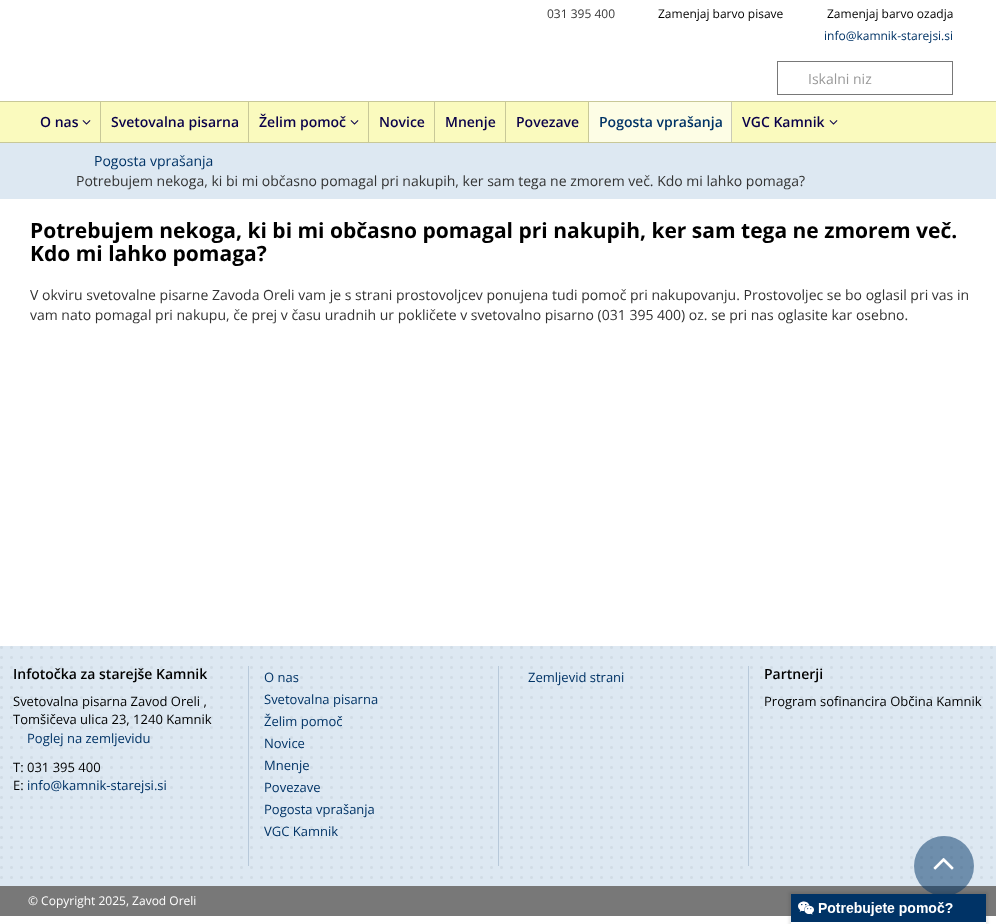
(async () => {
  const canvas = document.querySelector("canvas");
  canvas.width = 996;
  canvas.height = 924;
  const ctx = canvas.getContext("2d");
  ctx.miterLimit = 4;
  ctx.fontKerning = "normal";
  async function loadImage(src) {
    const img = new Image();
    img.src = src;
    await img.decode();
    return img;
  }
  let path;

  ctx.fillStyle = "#ffffff";
  ctx.fillRect(0, 0, 996, 924);
  ctx.strokeStyle = "#787878";
  ctx.strokeRect(777.5, 61.5, 175, 33);
  for (const [x, y, w, h, color] of [
    [0, 102, 996, 40, "#fafabe"],
    [0, 101, 996, 1, "#c8c898"],
    [0, 142, 996, 1, "#c8c898"],
  ]) {
    ctx.fillStyle = color;
    ctx.fillRect(x, y, w, h);
  }
  ctx.drawImage(await loadImage("img/1.png"), 82, 120, 9, 5);
  ctx.fillRect(100, 102, 1, 40);
  ctx.fillRect(248, 102, 1, 40);
  ctx.drawImage(await loadImage("img/1.png"), 350, 120, 9, 5);
  for (const [x, y, w, h, color] of [
    [368, 102, 1, 40, "#c8c898"],
    [434, 102, 1, 40, "#c8c898"],
    [505, 102, 1, 40, "#c8c898"],
    [588, 102, 1, 40, "#c8c898"],
    [589, 102, 142, 40, "#fdfde5"],
    [731, 102, 1, 40, "#cacab7"],
  ]) {
    ctx.fillStyle = color;
    ctx.fillRect(x, y, w, h);
  }
  ctx.drawImage(await loadImage("img/1.png"), 829, 120, 9, 5);
  ctx.fillStyle = "#dde8f2";
  ctx.fillRect(0, 143, 996, 56);
  ctx.fillRect(0, 646, 996, 240);
  ctx.drawImage(await loadImage("img/2.png"), 0, 646, 993, 233);
  for (const [x, y, w, h, color] of [
    [248, 666, 1, 200, "#b7c8d9"],
    [498, 666, 1, 200, "#b7c8d9"],
    [748, 666, 1, 200, "#b7c8d9"],
    [0, 886, 996, 30, "#787878"],
  ]) {
    ctx.fillStyle = color;
    ctx.fillRect(x, y, w, h);
  }
  ctx.fillStyle = "rgba(0, 51, 102, 0.5)";
  ctx.beginPath();
  ctx.arc(944, 866, 30, 0, Math.PI * 2);
  ctx.fill();
  ctx.drawImage(await loadImage("img/3.png"), 933, 858, 21, 12);
  ctx.save();
  path = new Path2D("M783 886H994V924H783ZM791 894H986V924H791Z");
  ctx.clip(path, "evenodd");
  ctx.fillStyle = "rgba(0, 0, 0, 0.1)";
  ctx.filter = "blur(1.5px)";
  ctx.beginPath();
  ctx.rect(789, 892, 199, 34);
  ctx.fill();
  ctx.filter = "none";
  ctx.restore();
  ctx.drawImage(await loadImage("img/4.png"), 791, 894, 195, 28);
  ctx.font = "12px Open Sans";
  ctx.fillStyle = "#393939";
  ctx.fillText("031 395 400", 547, 18);
  ctx.fillStyle = "#000000";
  ctx.fillText("Zamenjaj barvo pisave", 658, 18);
  ctx.fillText("Zamenjaj barvo ozadja", 827, 18);
  ctx.fillStyle = "#003366";
  ctx.fillText("info@kamnik-starejsi.si", 824, 40);
  ctx.font = "14px Open Sans";
  ctx.fillStyle = "#999999";
  ctx.fillText("Iskalni niz", 808, 84);
  ctx.font = "600 14px Open Sans";
  ctx.fillStyle = "#0a004a";
  for (const [text, x, y] of [
    ["O nas", 40, 127],
    ["Svetovalna pisarna", 111, 127],
    ["Želim pomoč", 259, 127],
    ["Novice", 379, 127],
    ["Mnenje", 445, 127],
    ["Povezave", 516, 127],
  ]) {
    ctx.fillText(text, x, y);
  }
  ctx.fillStyle = "#003366";
  ctx.fillText("Pogosta vprašanja", 599, 127);
  ctx.fillStyle = "#0a004a";
  ctx.fillText("VGC Kamnik", 742, 127);
  ctx.font = "14px Open Sans";
  ctx.fillStyle = "#003366";
  ctx.fillText("Pogosta vprašanja", 94, 166);
  ctx.fillStyle = "#333333";
  ctx.fillText("Potrebujem nekoga, ki bi mi občasno pomagal pri nakupih, ker sam tega ne zmorem več. Kdo mi lahko pomaga?", 76, 186);
  ctx.font = "bold 21px Open Sans";
  ctx.fillStyle = "#000000";
  ctx.fillText("Potrebujem nekoga, ki bi mi občasno pomagal pri nakupih, ker sam tega ne zmorem več.", 30, 238);
  ctx.fillText("Kdo mi lahko pomaga?", 30, 261);
  ctx.font = "14px Open Sans";
  ctx.fillStyle = "#333333";
  ctx.fillText("V okviru svetovalne pisarne Zavoda Oreli vam je s strani prostovoljcev ponujena tudi pomoč pri nakupovanju. Prostovoljec se bo oglasil pri vas in", 30, 300);
  ctx.fillText("vam nato pomagal pri nakupu, če prej v času uradnih ur pokličete v svetovalno pisarno (031 395 400) oz. se pri nas oglasite kar osebno.", 30, 320);
  ctx.font = "600 14px Open Sans";
  ctx.fillStyle = "#000000";
  ctx.fillText("Infotočka za starejše Kamnik", 13, 679);
  ctx.font = "13px Open Sans";
  ctx.fillText("Svetovalna pisarna Zavod Oreli ,", 13, 706);
  ctx.fillText("Tomšičeva ulica 23, 1240 Kamnik", 13, 724);
  ctx.fillStyle = "#003366";
  ctx.fillText("Poglej na zemljevidu", 27, 743);
  ctx.fillStyle = "#000000";
  ctx.fillText("T: 031 395 400", 13, 772);
  ctx.fillText("E:", 13, 790);
  ctx.fillStyle = "#003366";
  for (const [text, x, y] of [
    ["info@kamnik-starejsi.si", 27, 790],
    ["O nas", 264, 682],
    ["Svetovalna pisarna", 264, 704],
    ["Želim pomoč", 264, 726],
    ["Novice", 264, 748],
    ["Mnenje", 264, 770],
    ["Povezave", 264, 792],
    ["Pogosta vprašanja", 264, 814],
    ["VGC Kamnik", 264, 836],
    ["Zemljevid strani", 528, 682],
  ]) {
    ctx.fillText(text, x, y);
  }
  ctx.font = "600 14px Open Sans";
  ctx.fillStyle = "#000000";
  ctx.fillText("Partnerji", 764, 679);
  ctx.font = "13px Open Sans";
  ctx.fillText("Program sofinancira Občina Kamnik", 764, 706);
  ctx.font = "12px Open Sans";
  ctx.fillStyle = "#ffffff";
  ctx.fillText("© Copyright 2025, Zavod Oreli", 28, 905);
})();
